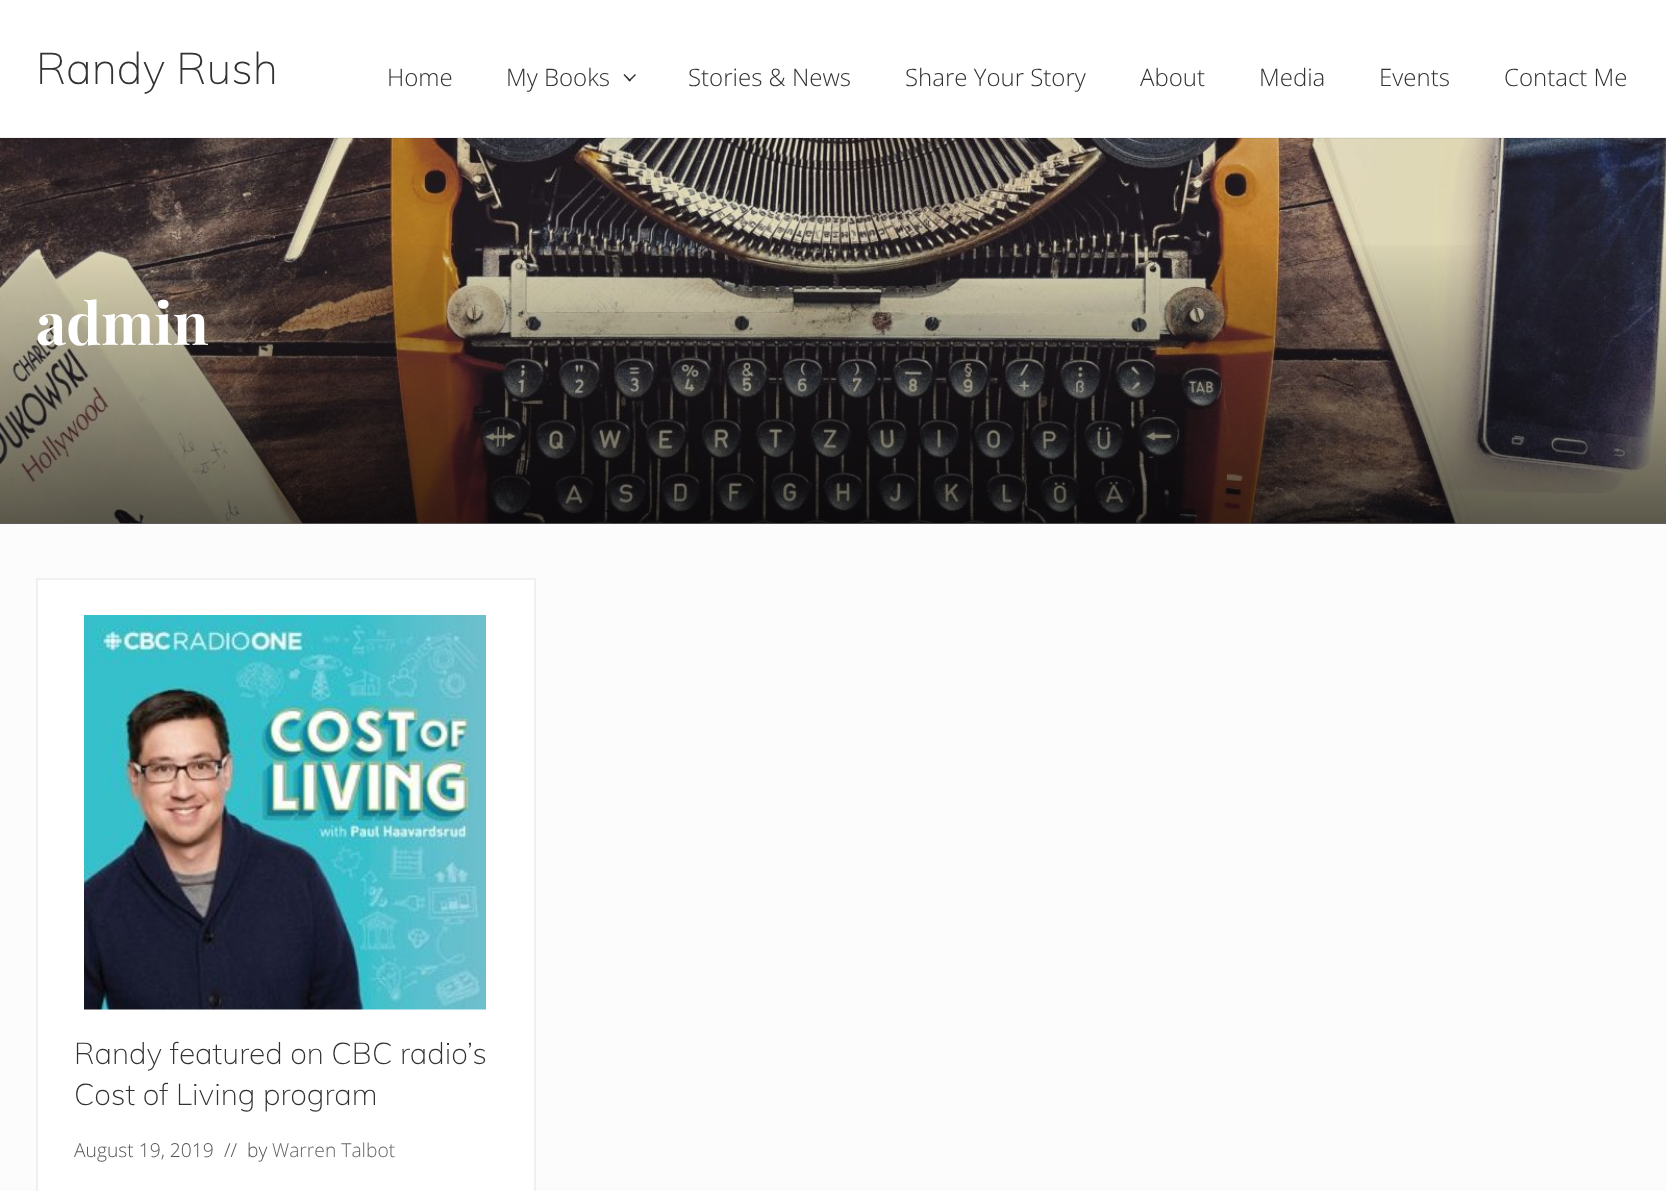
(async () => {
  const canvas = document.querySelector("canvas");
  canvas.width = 1666;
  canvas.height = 1191;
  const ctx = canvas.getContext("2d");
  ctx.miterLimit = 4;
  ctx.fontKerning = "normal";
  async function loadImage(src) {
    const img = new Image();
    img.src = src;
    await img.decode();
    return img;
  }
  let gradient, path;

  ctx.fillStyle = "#fcfcfc";
  ctx.fillRect(0, 0, 1666, 1191);
  ctx.fillStyle = "#ffffff";
  ctx.fillRect(0, 0, 1666, 138);
  ctx.fillStyle = "#f1f1f1";
  ctx.fillRect(0, 523, 1666, 1);
  ctx.drawImage(await loadImage("img/1.png"), 0, 138, 1666, 386);
  ctx.fillStyle = "rgba(0, 0, 0, 0.05)";
  ctx.fillRect(0, 137, 1666, 2);
  ctx.fillStyle = "#323232";
  path = new Path2D("M635 74L636 75L629.5 81.5L628.5 80.5Z");
  ctx.fill(path);
  path = new Path2D("M624.5 74L631 80.5L629.5 81.5L623.5 75Z");
  ctx.fill(path);
  gradient = ctx.createLinearGradient(833, 138, 833, 524);
  gradient.addColorStop(0.25, "rgba(0, 0, 0, 0)");
  gradient.addColorStop(1, "rgba(0, 0, 0, 0.6)");
  ctx.fillStyle = gradient;
  ctx.fillRect(0, 245, 1666, 279);
  ctx.fillStyle = "#ffffff";
  ctx.beginPath();
  ctx.rect(37, 579, 498, 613);
  ctx.fill();
  ctx.strokeStyle = "#f0f0f0";
  ctx.lineWidth = 2;
  ctx.stroke();
  ctx.drawImage(await loadImage("img/2.png"), 84, 615, 402, 395);
  ctx.font = "200 44px Muli";
  ctx.fillStyle = "#323232";
  ctx.fillText("Randy Rush", 36, 84);
  ctx.font = "300 24px Open Sans";
  for (const [text, x, y] of [
    ["Home", 387, 86],
    ["My Books", 506, 86],
    ["Stories & News", 688, 86],
    ["Share Your Story", 905, 86],
    ["About", 1140, 86],
    ["Media", 1259, 86],
    ["Events", 1379, 86],
    ["Contact Me", 1504, 86],
  ]) {
    ctx.fillText(text, x, y);
  }
  ctx.font = "bold 58.5px Playfair Display";
  ctx.fillStyle = "#ffffff";
  ctx.fillText("admin", 36, 345);
  ctx.font = "200 30px Muli";
  ctx.fillStyle = "#323232";
  ctx.fillText("Randy featured on CBC radio’s", 74, 1064);
  ctx.fillText("Cost of Living program", 74, 1105);
  ctx.font = "300 19.25px Open Sans";
  ctx.fillStyle = "#555555";
  ctx.fillText("August 19, 2019", 74, 1157);
  ctx.fillText("//  by", 224, 1157);
  ctx.fillStyle = "#666666";
  ctx.fillText("Warren Talbot", 272, 1157);
})();
